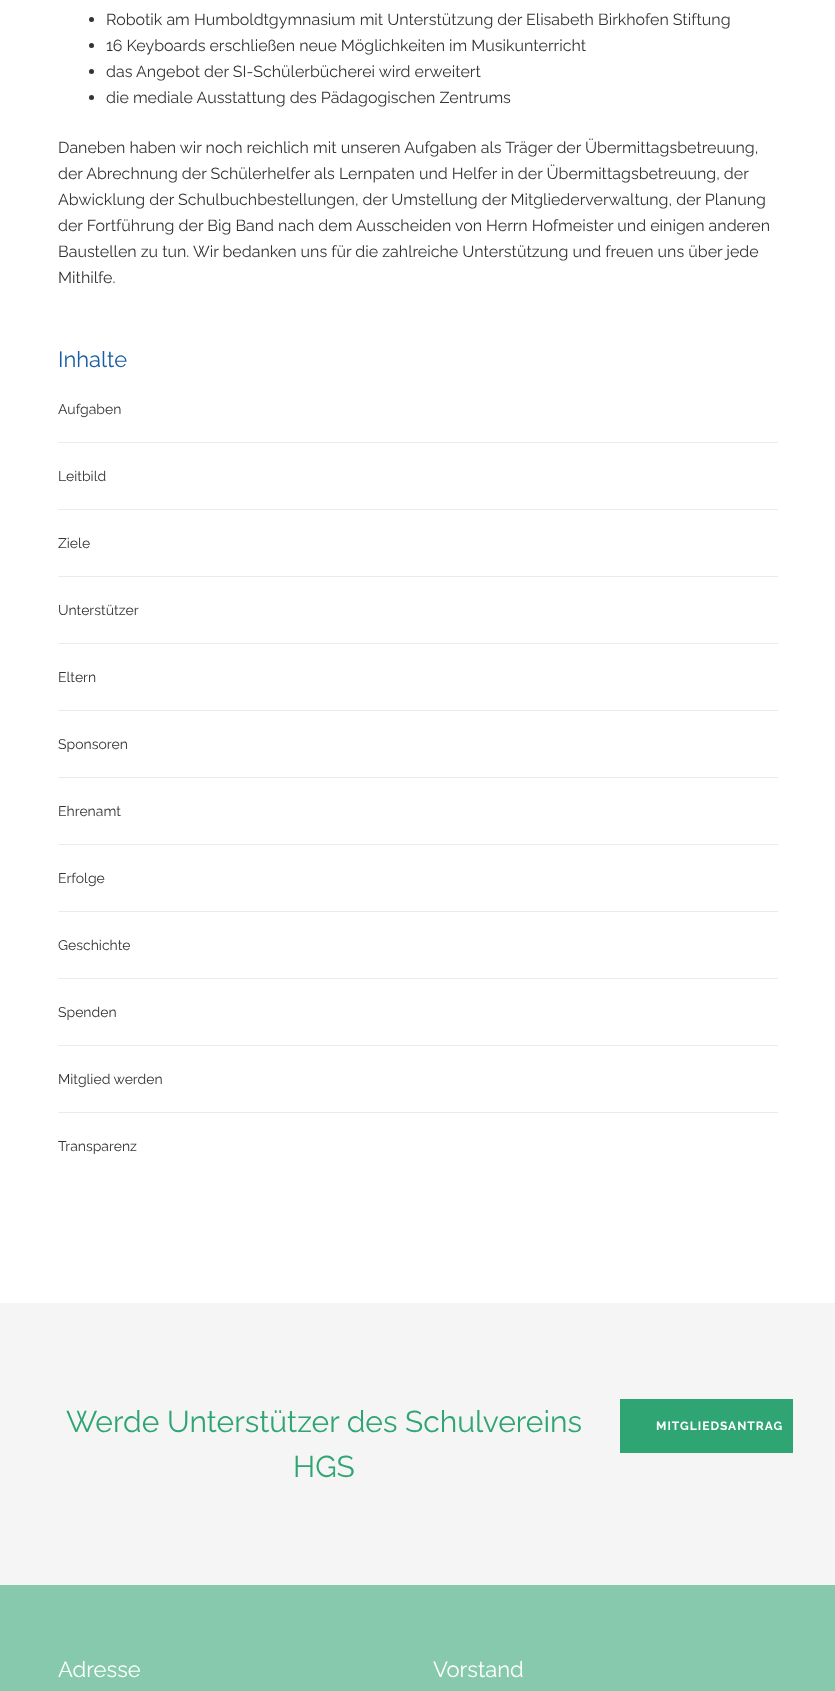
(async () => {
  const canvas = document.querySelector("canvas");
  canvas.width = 835;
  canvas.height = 1691;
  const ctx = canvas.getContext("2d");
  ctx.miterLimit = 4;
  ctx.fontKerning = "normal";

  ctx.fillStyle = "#ffffff";
  ctx.fillRect(0, 0, 835, 1691);
  ctx.fillStyle = "#333333";
  ctx.beginPath();
  ctx.arc(91.5, 19.5, 2.5, 0, Math.PI * 2);
  ctx.fill();
  ctx.beginPath();
  ctx.arc(91.5, 45.5, 2.5, 0, Math.PI * 2);
  ctx.fill();
  ctx.beginPath();
  ctx.arc(91.5, 71.5, 2.5, 0, Math.PI * 2);
  ctx.fill();
  ctx.beginPath();
  ctx.arc(91.5, 97.5, 2.5, 0, Math.PI * 2);
  ctx.fill();
  for (const [x, y, w, h, color] of [
    [58, 576, 720, 1, "#ebebeb"],
    [58, 442, 720, 1, "#ebebeb"],
    [58, 509, 720, 1, "#ebebeb"],
    [58, 844, 720, 1, "#ebebeb"],
    [58, 643, 720, 1, "#ebebeb"],
    [58, 710, 720, 1, "#ebebeb"],
    [58, 777, 720, 1, "#ebebeb"],
    [58, 911, 720, 1, "#ebebeb"],
    [58, 978, 720, 1, "#ebebeb"],
    [58, 1045, 720, 1, "#ebebeb"],
    [58, 1112, 720, 1, "#ebebeb"],
    [0, 1303, 835, 282, "#f5f5f5"],
    [620, 1399, 173, 54, "#2ea572"],
    [0, 1585, 835, 106, "#87c9ad"],
  ]) {
    ctx.fillStyle = color;
    ctx.fillRect(x, y, w, h);
  }
  ctx.font = "16px Raleway";
  ctx.fillStyle = "#333333";
  for (const [text, x, y] of [
    ["Robotik am Humboldtgymnasium mit Unterstützung der Elisabeth Birkhofen Stiftung", 106, 25],
    ["16 Keyboards erschließen neue Möglichkeiten im Musikunterricht", 106, 51],
    ["das Angebot der SI-Schülerbücherei wird erweitert", 106, 77],
    ["die mediale Ausstattung des Pädagogischen Zentrums", 106, 103],
    ["Daneben haben wir noch reichlich mit unseren Aufgaben als Träger der Übermittagsbetreuung,", 58, 153],
    ["der Abrechnung der Schülerhelfer als Lernpaten und Helfer in der Übermittagsbetreuung, der", 58, 179],
    ["Abwicklung der Schulbuchbestellungen, der Umstellung der Mitgliederverwaltung, der Planung", 58, 205],
    ["der Fortführung der Big Band nach dem Ausscheiden von Herrn Hofmeister und einigen anderen", 58, 231],
    ["Baustellen zu tun. Wir bedanken uns für die zahlreiche Unterstützung und freuen uns über jede", 58, 257],
    ["Mithilfe.", 58, 283],
  ]) {
    ctx.fillText(text, x, y);
  }
  ctx.font = "22px Raleway";
  ctx.fillStyle = "#185ea4";
  ctx.fillText("Inhalte", 58, 367);
  ctx.font = "14px Raleway";
  ctx.fillStyle = "#333333";
  for (const [text, x, y] of [
    ["Aufgaben", 58, 414],
    ["Leitbild", 58, 481],
    ["Ziele", 58, 548],
    ["Unterstützer", 58, 615],
    ["Eltern", 58, 682],
    ["Sponsoren", 58, 749],
    ["Ehrenamt", 58, 816],
    ["Erfolge", 58, 883],
    ["Geschichte", 58, 950],
    ["Spenden", 58, 1017],
    ["Mitglied werden", 58, 1084],
    ["Transparenz", 58, 1151],
  ]) {
    ctx.fillText(text, x, y);
  }
  ctx.font = "30px Raleway";
  ctx.fillStyle = "#2ea572";
  ctx.fillText("Werde Unterstützer des Schulvereins", 66, 1432);
  ctx.fillText("HGS", 293, 1477);
  ctx.letterSpacing = "1px";
  ctx.font = "bold 12px Raleway";
  ctx.fillStyle = "#ffffff";
  ctx.fillText("MITGLIEDSANTRAG", 656, 1430);
  ctx.letterSpacing = "0px";
  ctx.font = "22px Raleway";
  ctx.fillText("Adresse", 58, 1677);
  ctx.fillText("Vorstand", 433, 1677);
})();
